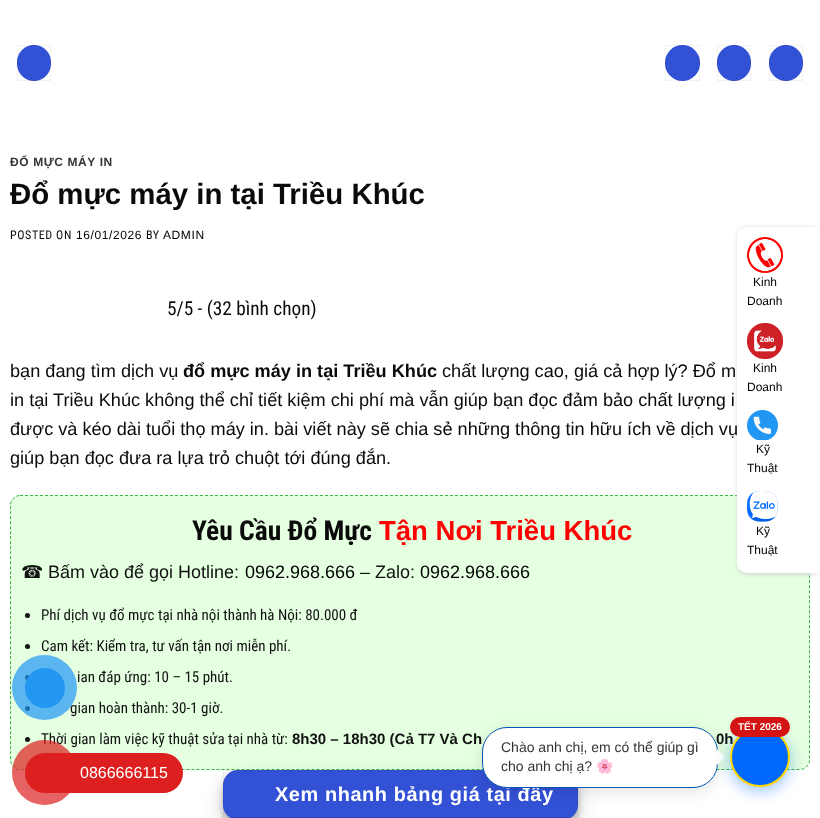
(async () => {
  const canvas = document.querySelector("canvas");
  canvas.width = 820;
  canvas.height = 818;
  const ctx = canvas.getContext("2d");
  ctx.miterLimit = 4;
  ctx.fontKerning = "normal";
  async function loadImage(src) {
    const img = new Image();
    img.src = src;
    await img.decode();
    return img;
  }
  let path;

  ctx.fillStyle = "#ffffff";
  ctx.fillRect(0, 0, 820, 818);
  ctx.fillStyle = "#3351d5";
  ctx.beginPath();
  ctx.roundRect(17, 45, 34, 36, 17);
  ctx.fill();
  ctx.strokeStyle = "rgba(0, 0, 0, 0.05)";
  ctx.strokeRect(17.5, 45.5, 33, 35);
  ctx.beginPath();
  ctx.roundRect(665, 45, 35, 36, 17.5);
  ctx.fill();
  ctx.strokeRect(665.5, 45.5, 34, 35);
  ctx.beginPath();
  ctx.roundRect(717, 45, 34, 36, 17);
  ctx.fill();
  ctx.strokeRect(717.5, 45.5, 33, 35);
  ctx.beginPath();
  ctx.roundRect(769, 45, 34, 36, 17);
  ctx.fill();
  ctx.strokeRect(769.5, 45.5, 33, 35);
  ctx.fillStyle = "#e5ffe1";
  ctx.beginPath();
  ctx.roundRect(10, 495, 800, 275, 10);
  ctx.fill();
  path = new Path2D("M20 495.5H800C805 495.5 809.5 500 809.5 505V760C809.5 765 805 769.5 800 769.5H20C15 769.5 10.5 765 10.5 760V505C10.5 500 15 495.5 20 495.5Z");
  ctx.strokeStyle = "#39b54a";
  ctx.setLineDash([3, 2]);
  ctx.stroke(path);
  ctx.fillStyle = "#111111";
  ctx.beginPath();
  ctx.arc(27.5, 615.5, 2.5, 0, Math.PI * 2);
  ctx.fill();
  ctx.beginPath();
  ctx.arc(27.5, 646.5, 2.5, 0, Math.PI * 2);
  ctx.fill();
  ctx.beginPath();
  ctx.arc(27.5, 677.5, 2.5, 0, Math.PI * 2);
  ctx.fill();
  ctx.beginPath();
  ctx.arc(27.5, 708.5, 2.5, 0, Math.PI * 2);
  ctx.fill();
  ctx.beginPath();
  ctx.arc(27.5, 739.5, 2.5, 0, Math.PI * 2);
  ctx.fill();
  ctx.fillStyle = "rgba(0, 0, 0, 0.22)";
  ctx.filter = "blur(3px)";
  ctx.beginPath();
  ctx.roundRect(223, 776, 355, 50, 15);
  ctx.fill();
  ctx.filter = "none";
  ctx.fillStyle = "rgba(0, 0, 0, 0.19)";
  ctx.filter = "blur(10px)";
  ctx.beginPath();
  ctx.roundRect(223, 780, 355, 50, 15);
  ctx.fill();
  ctx.filter = "none";
  ctx.fillStyle = "#3351d5";
  ctx.beginPath();
  ctx.roundRect(223, 770, 355, 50, 15);
  ctx.fill();
  ctx.strokeStyle = "rgba(0, 0, 0, 0.05)";
  ctx.setLineDash([]);
  ctx.strokeRect(223.5, 770.5, 354, 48);
  ctx.fillStyle = "#2b45b5";
  path = new Path2D("M231 817C233 818 235 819 238 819H563C566 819 568 818 570 817Z");
  ctx.fill(path);
  ctx.fillStyle = "#cccccc";
  ctx.filter = "blur(2.5px)";
  ctx.beginPath();
  ctx.roundRect(738, 228, 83, 346, 10);
  ctx.fill();
  ctx.filter = "none";
  ctx.fillStyle = "#ffffff";
  ctx.beginPath();
  ctx.roundRect(737, 227, 83, 346, [10, 0, 0, 10]);
  ctx.fill();
  ctx.drawImage(await loadImage("img/1.png"), 747, 237, 36, 36);
  ctx.drawImage(await loadImage("img/2.png"), 747, 323, 36, 36);
  ctx.drawImage(await loadImage("img/3.png"), 747, 410, 31, 30);
  ctx.drawImage(await loadImage("img/4.png"), 747, 491, 31, 31);
  ctx.fillStyle = "#dd1f1f";
  ctx.beginPath();
  ctx.roundRect(30, 753, 153, 40, 20);
  ctx.fill();
  ctx.fillStyle = "rgba(0, 0, 0, 0.1)";
  ctx.filter = "blur(7.5px)";
  ctx.beginPath();
  ctx.roundRect(482, 731, 236, 61, 25);
  ctx.fill();
  ctx.filter = "none";
  ctx.letterSpacing = "0.6px";
  ctx.font = "bold 12px Liberation Sans";
  ctx.fillStyle = "#333333";
  ctx.fillText("ĐỔ MỰC MÁY IN", 10, 166);
  ctx.letterSpacing = "0px";
  ctx.font = "bold 29.4px Liberation Sans";
  ctx.fillStyle = "#0a0a0a";
  ctx.fillText("Đổ mực máy in tại Triều Khúc", 10, 204);
  ctx.letterSpacing = "0.6px";
  ctx.font = "12px Roboto Condensed";
  ctx.fillText("POSTED ON", 10, 239);
  ctx.font = "12px Liberation Sans";
  ctx.fillStyle = "#000000";
  ctx.fillText("16/01/2026", 76, 239);
  ctx.font = "12px Roboto Condensed";
  ctx.fillStyle = "#0a0a0a";
  ctx.fillText("BY", 146, 239);
  ctx.font = "12px Liberation Sans";
  ctx.fillStyle = "#000000";
  ctx.fillText("ADMIN", 163, 239);
  ctx.letterSpacing = "0px";
  ctx.font = "19.25px Roboto Condensed";
  ctx.fillStyle = "#0a0a0a";
  ctx.fillText("5/5 - (32 bình chọn)", 167, 315);
  ctx.font = "18.15px Liberation Sans";
  ctx.fillText("bạn đang tìm dịch vụ", 10, 377);
  ctx.font = "bold 18.15px Liberation Sans";
  ctx.fillText("đổ mực máy in tại Triều Khúc", 183, 377);
  ctx.font = "18.15px Liberation Sans";
  for (const [text, x, y] of [
    ["chất lượng cao, giá cả hợp lý? Đổ m", 442, 377],
    ["in tại Triều Khúc không thể chỉ tiết kiệm chi phí mà vẫn giúp bạn đọc đảm bảo chất lượng i", 10, 406],
    ["được và kéo dài tuổi thọ máy in. bài viết này sẽ chia sẻ những thông tin hữu ích về dịch vụ", 10, 435],
    ["giúp bạn đọc đưa ra lựa trỏ chuột tới đúng đắn.", 10, 464],
  ]) {
    ctx.fillText(text, x, y);
  }
  ctx.font = "bold 27.5px Roboto Condensed";
  ctx.fillText("Yêu Cầu Đổ Mực", 192, 540);
  ctx.font = "bold 27.5px Liberation Sans";
  ctx.fillStyle = "#ff0000";
  ctx.fillText("Tận Nơi Triều Khúc", 379, 540);
  ctx.font = "18px DejaVu Sans";
  ctx.fillStyle = "#111111";
  ctx.fillText("☎", 21, 578);
  ctx.font = "18px Liberation Sans";
  ctx.fillText("Bấm vào để gọi Hotline:", 48, 578);
  ctx.fillStyle = "#000000";
  ctx.fillText("0962.968.666", 245, 578);
  ctx.fillStyle = "#111111";
  ctx.fillText("– Zalo:", 360, 578);
  ctx.fillStyle = "#000000";
  ctx.fillText("0962.968.666", 420, 578);
  ctx.font = "15px Roboto Condensed";
  ctx.fillStyle = "#111111";
  for (const [text, x, y] of [
    ["Phí dịch vụ đổ mực tại nhà nội thành hà Nội: 80.000 đ", 41, 620],
    ["Cam kết: Kiểm tra, tư vấn tận nơi miễn phí.", 41, 651],
    ["ian đáp ứng: 10 – 15 phút.", 77, 682],
    ["gian hoàn thành: 30-1 giờ.", 70, 713],
    ["Thời gian làm việc kỹ thuật sửa tại nhà từ:", 41, 744],
  ]) {
    ctx.fillText(text, x, y);
  }
  ctx.font = "bold 15px Liberation Sans";
  ctx.fillText("8h30 – 18h30 (Cả T7 Và Ch", 292, 744);
  ctx.fillText("0h", 716, 744);
  ctx.letterSpacing = "0.6px";
  ctx.font = "bold 19.9px Liberation Sans";
  ctx.fillStyle = "#ffffff";
  ctx.fillText("Xem nhanh bảng giá tại đây", 275, 801);
  ctx.letterSpacing = "0px";
  ctx.font = "12px Liberation Sans";
  ctx.fillStyle = "#000000";
  for (const [text, x, y] of [
    ["Kinh", 753, 286],
    ["Doanh", 747, 305],
    ["Kinh", 753, 372],
    ["Doanh", 747, 391],
    ["Kỹ", 756, 453],
    ["Thuật", 747, 472],
    ["Kỹ", 756, 535],
    ["Thuật", 747, 554],
  ]) {
    ctx.fillText(text, x, y);
  }
  ctx.fillStyle = "rgba(33, 150, 243, 0.7)";
  ctx.beginPath();
  ctx.arc(44.5, 687.5, 32.5, 0, Math.PI * 2);
  ctx.fill();
  ctx.fillStyle = "#2196f3";
  ctx.beginPath();
  ctx.arc(45, 688, 20, 0, Math.PI * 2);
  ctx.fill();
  ctx.fillStyle = "rgba(221, 31, 31, 0.7)";
  ctx.beginPath();
  ctx.arc(44.5, 772.5, 32.5, 0, Math.PI * 2);
  ctx.fill();
  ctx.fillStyle = "#dd1f1f";
  ctx.beginPath();
  ctx.arc(45, 773, 20, 0, Math.PI * 2);
  ctx.fill();
  ctx.font = "16px Liberation Sans";
  ctx.fillStyle = "#ffffff";
  ctx.fillText("0866666115", 80, 778);
  ctx.beginPath();
  ctx.roundRect(482.5, 727.5, 235, 60, 24.5);
  ctx.fill();
  ctx.strokeStyle = "#0056b3";
  ctx.stroke();
  ctx.font = "14px Liberation Sans";
  ctx.fillStyle = "#333333";
  ctx.fillText("Chào anh chị, em có thể giúp gì", 501, 752);
  ctx.fillText("cho anh chị ạ?", 501, 771);
  ctx.font = "14px Noto Color Emoji";
  ctx.fillText("🌸", 596, 771);
  ctx.fillStyle = "#ffffff";
  path = new Path2D("M717 765V749L725 757Z");
  ctx.fill(path);
  ctx.fillStyle = "rgba(0, 104, 255, 0.4)";
  ctx.filter = "blur(7.5px)";
  ctx.beginPath();
  ctx.roundRect(730, 731, 60, 60, 30);
  ctx.fill();
  ctx.filter = "none";
  ctx.fillStyle = "#0068ff";
  ctx.beginPath();
  ctx.arc(760, 757, 29, 0, Math.PI * 2);
  ctx.fill();
  ctx.strokeStyle = "#ffd700";
  ctx.lineWidth = 2;
  ctx.stroke();
  ctx.fillStyle = "#d41414";
  ctx.beginPath();
  ctx.roundRect(730, 717, 60, 20, 10);
  ctx.fill();
  ctx.font = "bold 10px Liberation Sans";
  ctx.fillStyle = "#ffffff";
  ctx.fillText("TẾT 2026", 738, 730);
})();
